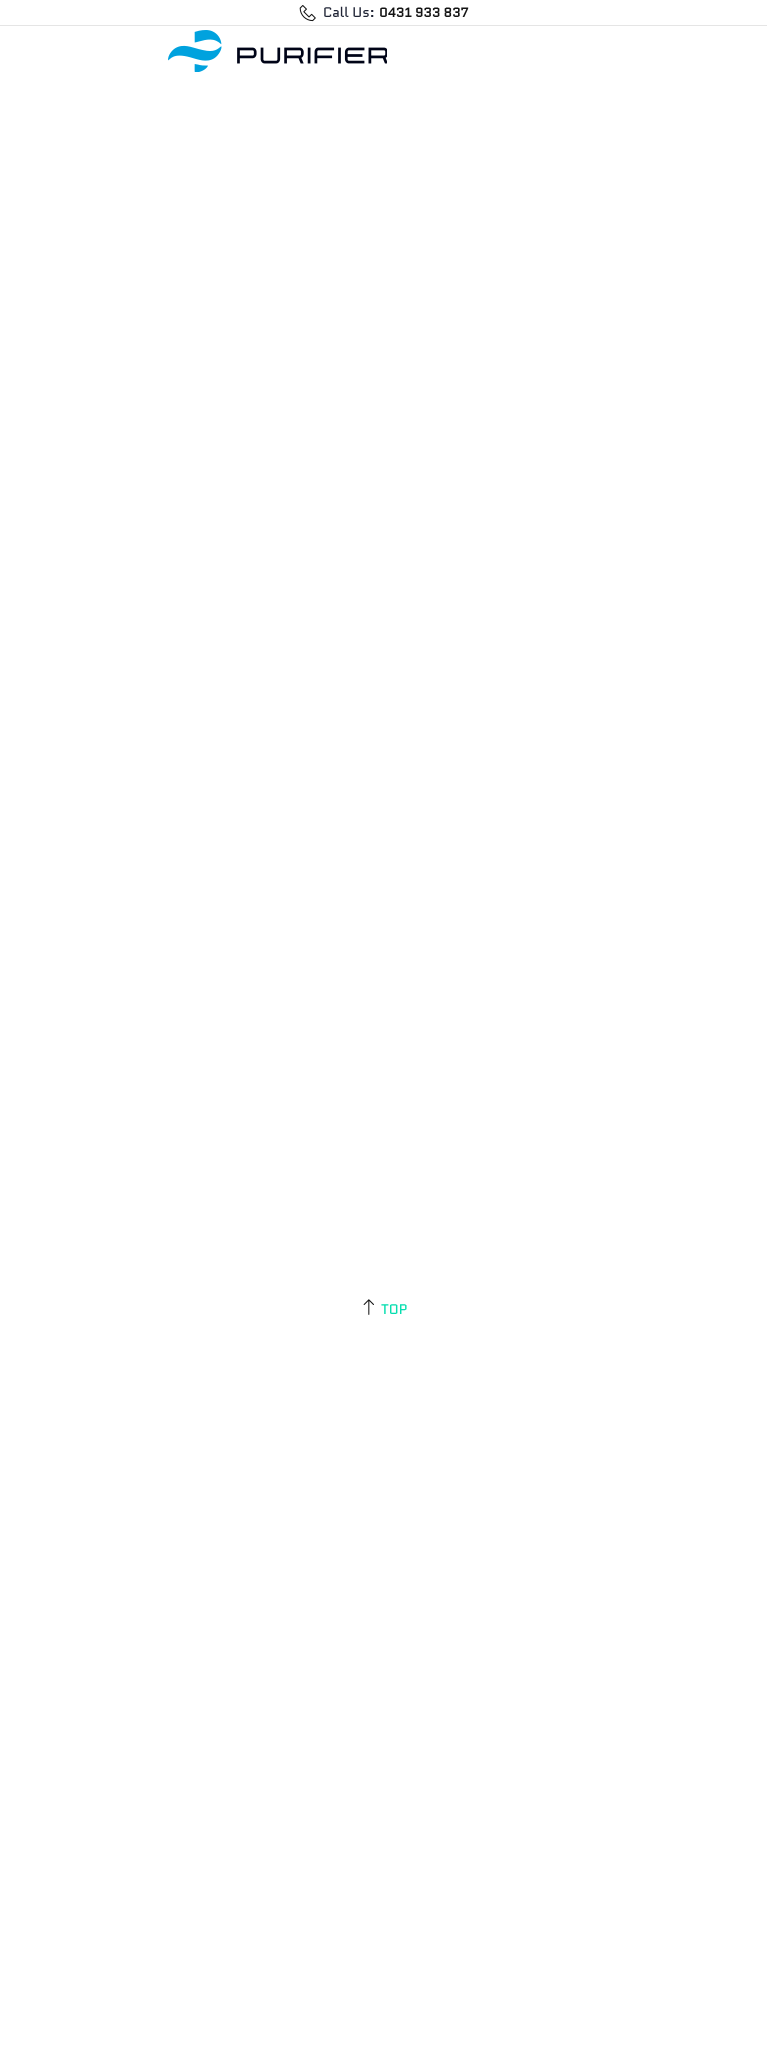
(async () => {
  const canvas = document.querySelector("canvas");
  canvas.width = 767;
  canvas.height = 2069;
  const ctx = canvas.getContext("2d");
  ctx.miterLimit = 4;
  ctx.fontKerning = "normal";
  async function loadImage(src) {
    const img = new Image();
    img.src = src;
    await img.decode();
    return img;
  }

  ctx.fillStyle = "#ffffff";
  ctx.fillRect(0, 0, 767, 2069);
  ctx.fillStyle = "#e5e5e5";
  ctx.fillRect(0, 25, 767, 1);
  ctx.drawImage(await loadImage("img/1.png"), 299, 5, 17, 17);
  ctx.drawImage(await loadImage("img/2.png"), 168, 30, 219, 42);
  ctx.drawImage(await loadImage("img/3.png"), 363, 1299, 11, 16);
  ctx.font = "14px Quantico";
  ctx.fillStyle = "#202536";
  ctx.fillText("Call Us:", 323, 17);
  ctx.font = "bold 13px Quantico";
  ctx.fillStyle = "#141414";
  ctx.fillText("0431 933 837", 379, 17);
  ctx.font = "14px Quantico";
  ctx.fillStyle = "#05deaf";
  ctx.fillText("TOP", 381, 1314);
})();
